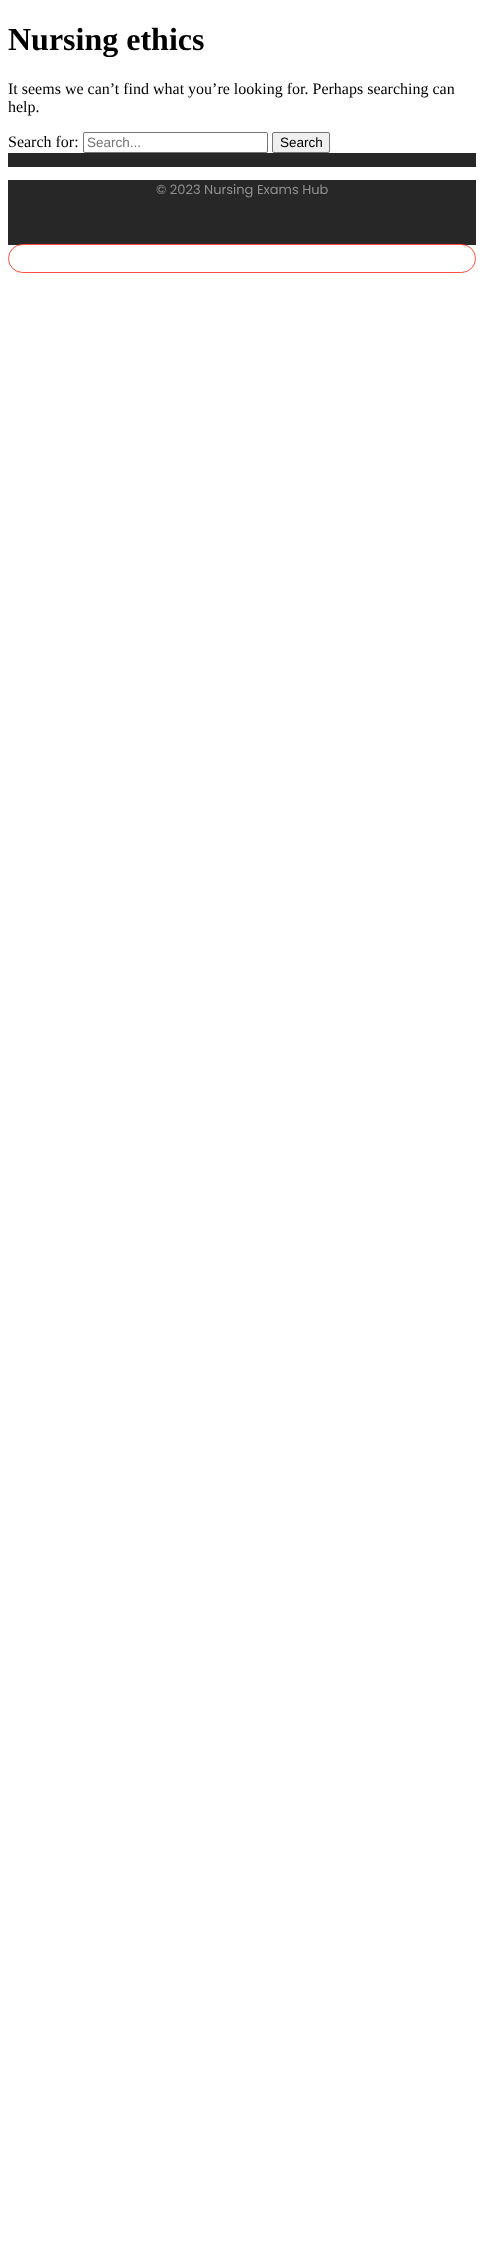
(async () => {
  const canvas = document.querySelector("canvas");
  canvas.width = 484;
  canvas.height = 2241;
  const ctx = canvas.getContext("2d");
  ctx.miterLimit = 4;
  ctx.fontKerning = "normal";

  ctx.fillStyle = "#ffffff";
  ctx.fillRect(0, 0, 484, 2241);
  ctx.beginPath();
  ctx.roundRect(83.5, 132.5, 184, 20, 1.5);
  ctx.strokeStyle = "#767676";
  ctx.stroke();
  ctx.fillStyle = "#efefef";
  ctx.beginPath();
  ctx.roundRect(272.5, 132.5, 57, 20, 1.5);
  ctx.fill();
  ctx.stroke();
  ctx.fillStyle = "#272727";
  ctx.fillRect(8, 153, 468, 14);
  ctx.fillRect(8, 180, 468, 65);
  ctx.beginPath();
  ctx.roundRect(8.5, 244.5, 467, 28, 14);
  ctx.strokeStyle = "#ff4f40";
  ctx.stroke();
  ctx.font = "bold 32px Liberation Serif";
  ctx.fillStyle = "#000000";
  ctx.fillText("Nursing ethics", 8, 50);
  ctx.font = "16px Liberation Serif";
  for (const [text, x, y] of [
    ["It seems we can’t find what you’re looking for. Perhaps searching can", 8, 94],
    ["help.", 8, 112],
    ["Search for:", 8, 147],
  ]) {
    ctx.fillText(text, x, y);
  }
  ctx.font = "13.5px Liberation Sans";
  ctx.fillStyle = "#757575";
  ctx.fillText("Search...", 87, 147);
  ctx.fillStyle = "#000000";
  ctx.fillText("Search", 280, 147);
  ctx.font = "13px Poppins";
  ctx.fillStyle = "#909090";
  ctx.fillText("© 2023 Nursing Exams Hub", 156, 194);
})();
